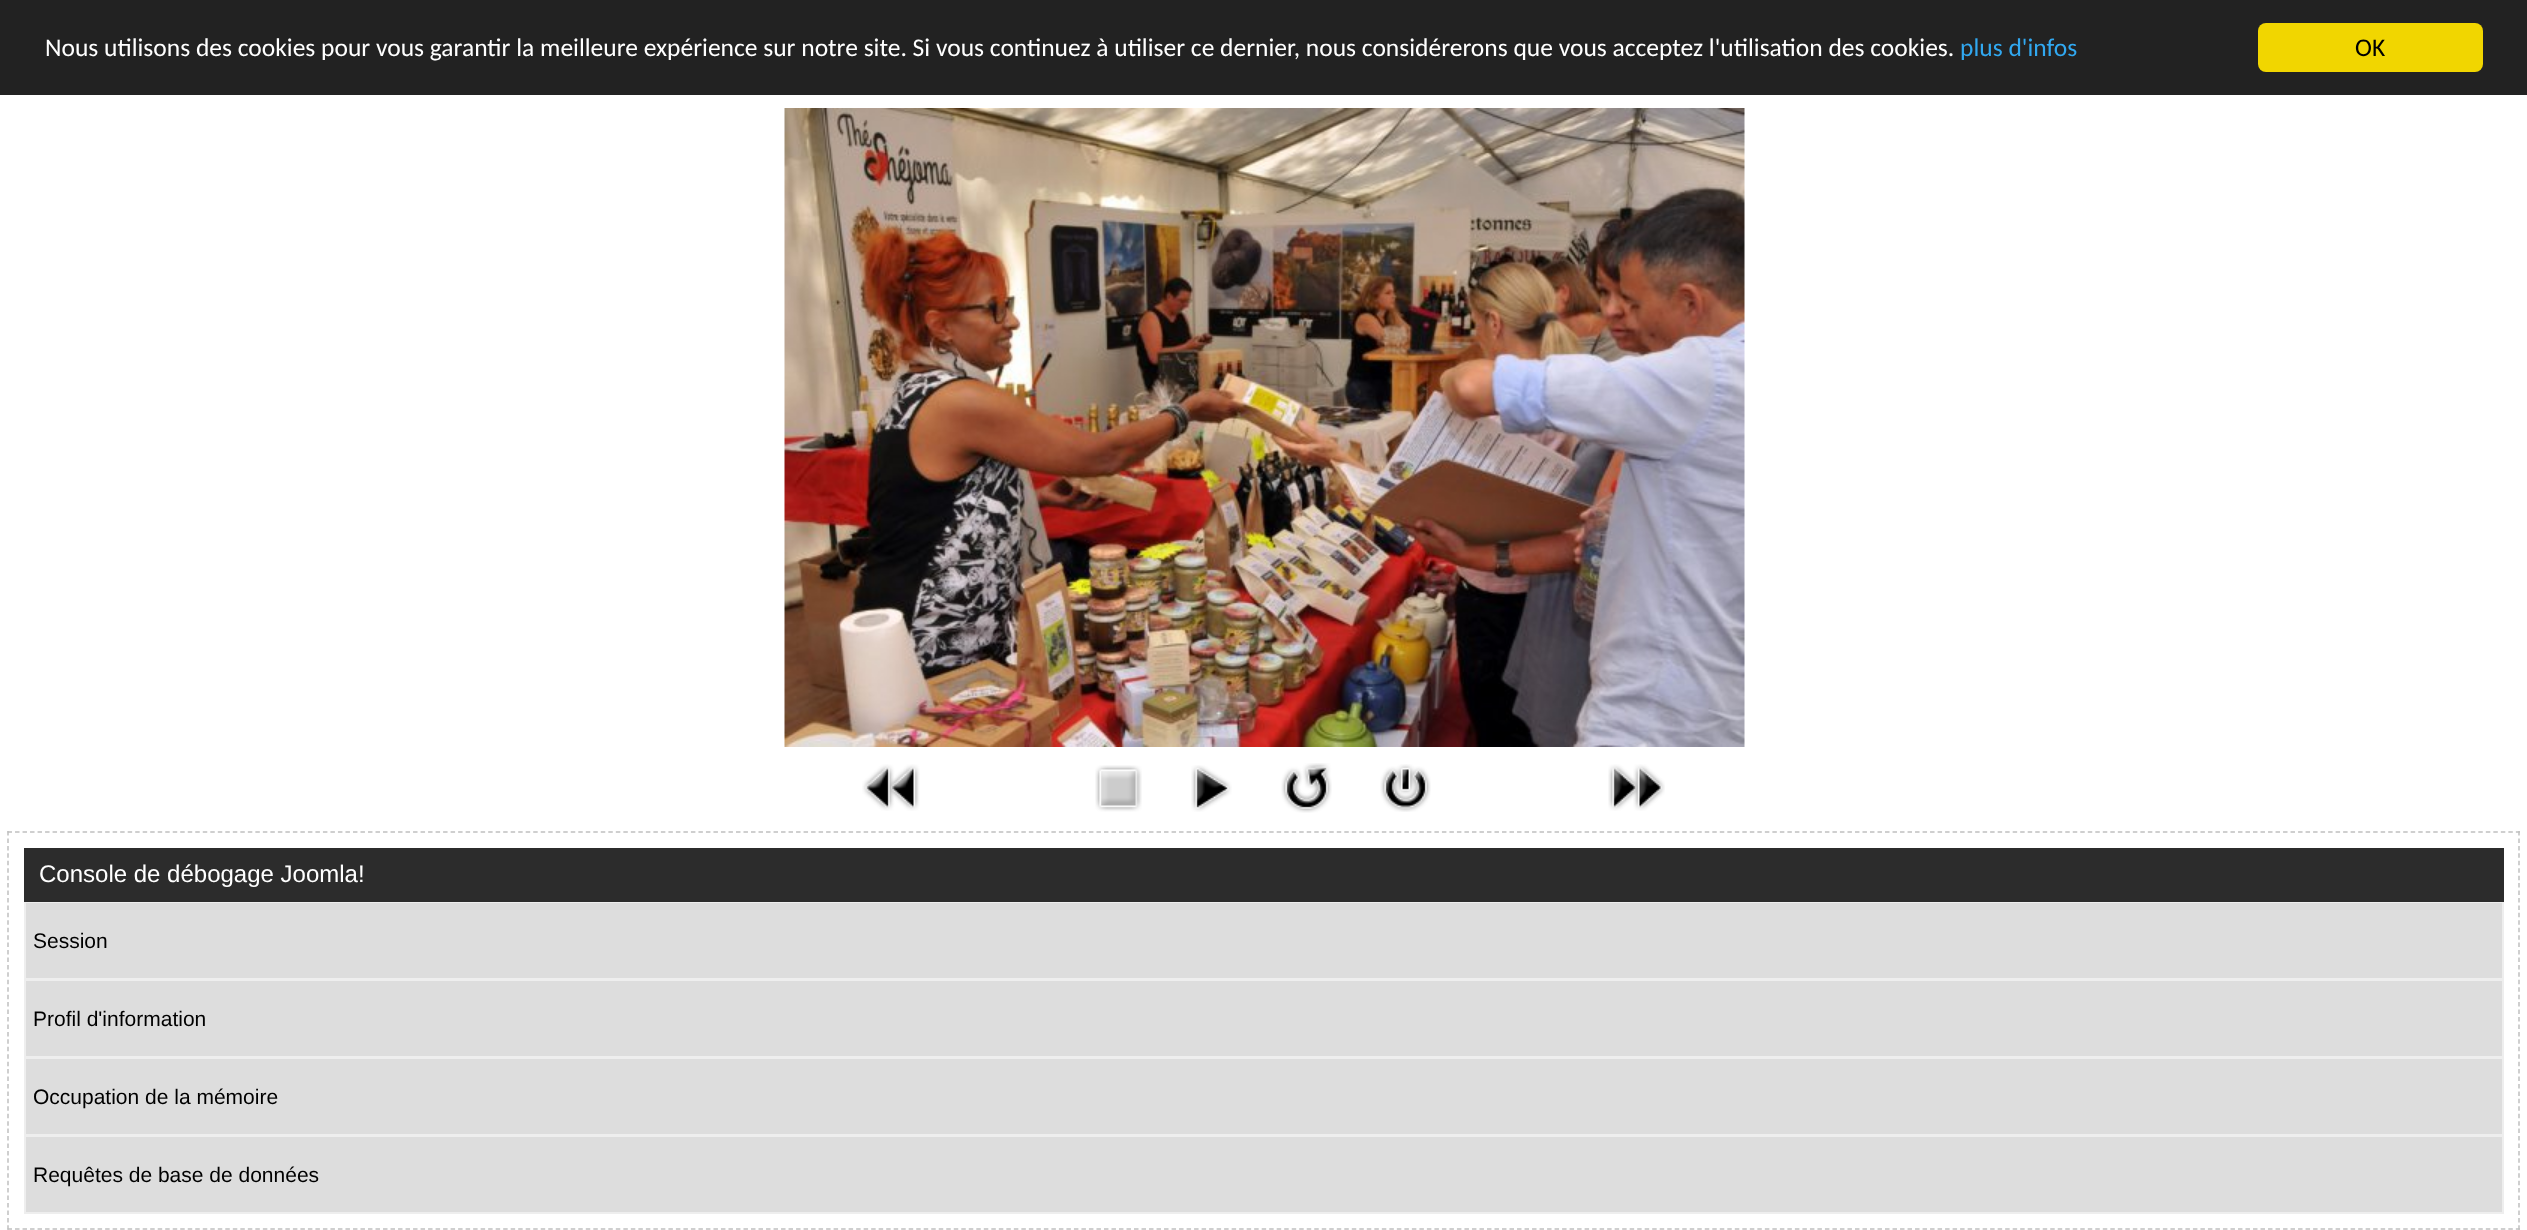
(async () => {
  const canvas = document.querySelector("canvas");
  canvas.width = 2527;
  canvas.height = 1230;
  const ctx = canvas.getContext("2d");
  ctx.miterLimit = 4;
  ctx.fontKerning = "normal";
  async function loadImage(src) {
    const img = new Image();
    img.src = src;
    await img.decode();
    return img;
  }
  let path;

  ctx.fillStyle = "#ffffff";
  ctx.fillRect(0, 0, 2527, 1230);
  ctx.fillStyle = "#222222";
  ctx.fillRect(0, 0, 2527, 95);
  ctx.fillStyle = "#f1d600";
  ctx.beginPath();
  ctx.roundRect(2258, 23, 225, 49, 8);
  ctx.fill();
  ctx.drawImage(await loadImage("img/1.png"), 784, 108, 961, 639);
  ctx.drawImage(await loadImage("img/2.png"), 862, 764, 58, 47);
  ctx.drawImage(await loadImage("img/3.png"), 1095, 765, 47, 47);
  ctx.drawImage(await loadImage("img/4.png"), 1191, 765, 41, 47);
  ctx.drawImage(await loadImage("img/5.png"), 1281, 763, 51, 50);
  ctx.drawImage(await loadImage("img/6.png"), 1380, 764, 51, 48);
  ctx.drawImage(await loadImage("img/7.png"), 1608, 764, 57, 47);
  path = new Path2D("M7.5 832H2520");
  ctx.strokeStyle = "#c0c0c0";
  ctx.lineWidth = 1.5;
  ctx.setLineDash([4.5, 3.01]);
  ctx.stroke(path);
  path = new Path2D("M2519 831V1230");
  ctx.setLineDash([4.5, 2.94]);
  ctx.stroke(path);
  path = new Path2D("M7.5 1229H2520");
  ctx.setLineDash([4.5, 3.01]);
  ctx.stroke(path);
  path = new Path2D("M8 831V1230");
  ctx.setLineDash([4.5, 2.94]);
  ctx.stroke(path);
  ctx.fillStyle = "#2c2c2c";
  ctx.fillRect(24, 848, 2480, 54);
  ctx.strokeStyle = "#eeeeee";
  ctx.lineWidth = 2;
  ctx.setLineDash([]);
  ctx.strokeRect(25, 903, 2478, 76);
  ctx.fillStyle = "#dddddd";
  ctx.fillRect(26, 903, 2476, 75);
  ctx.strokeRect(25, 981, 2478, 76);
  ctx.fillRect(26, 981, 2476, 75);
  ctx.strokeRect(25, 1059, 2478, 76);
  ctx.fillRect(26, 1059, 2476, 75);
  ctx.strokeRect(25, 1137, 2478, 76);
  ctx.fillRect(26, 1137, 2476, 75);
  ctx.font = "25.5px Carlito";
  ctx.fillStyle = "#ffffff";
  ctx.fillText("Nous utilisons des cookies pour vous garantir la meilleure expérience sur notre site. Si vous continuez à utiliser ce dernier, nous considérerons que vous acceptez l'utilisation des cookies.", 45, 56);
  ctx.fillStyle = "#31a8f0";
  ctx.fillText("plus d'infos", 1960, 56);
  ctx.fillStyle = "#000000";
  ctx.fillText("OK", 2355, 56);
  ctx.font = "24px Liberation Sans";
  ctx.fillStyle = "#ffffff";
  ctx.fillText("Console de débogage Joomla!", 39, 882);
  ctx.font = "21px Liberation Sans";
  ctx.fillStyle = "#000000";
  for (const [text, x, y] of [
    ["Session", 33, 948],
    ["Profil d'information", 33, 1026],
    ["Occupation de la mémoire", 33, 1104],
    ["Requêtes de base de données", 33, 1182],
  ]) {
    ctx.fillText(text, x, y);
  }
})();
